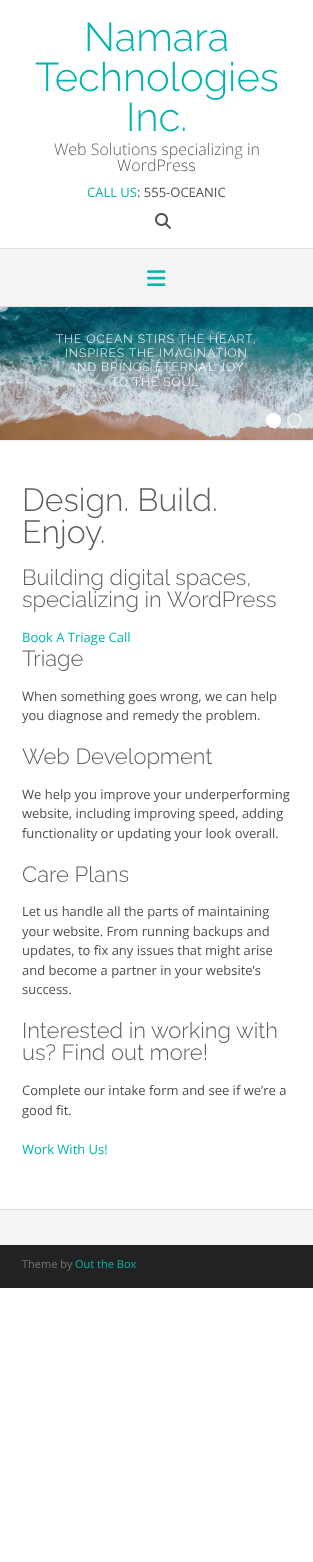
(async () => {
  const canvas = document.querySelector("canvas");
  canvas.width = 313;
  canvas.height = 1562;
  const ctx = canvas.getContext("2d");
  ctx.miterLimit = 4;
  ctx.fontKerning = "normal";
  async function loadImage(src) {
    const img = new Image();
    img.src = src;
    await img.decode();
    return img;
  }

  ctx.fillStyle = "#ffffff";
  ctx.fillRect(0, 0, 313, 1562);
  ctx.fillStyle = "#e0e0e0";
  ctx.fillRect(0, 306, 313, 1);
  ctx.drawImage(await loadImage("img/1.png"), 155, 213, 16, 16);
  ctx.fillStyle = "#f5f5f5";
  ctx.fillRect(0, 249, 313, 57);
  ctx.fillStyle = "#e0e0e0";
  ctx.fillRect(0, 248, 313, 1);
  ctx.drawImage(await loadImage("img/2.png"), 147, 270, 19, 16);
  ctx.fillStyle = "#f0f0f0";
  ctx.fillRect(0, 440, 313, 1);
  ctx.drawImage(await loadImage("img/3.png"), 0, 307, 313, 133);
  ctx.fillStyle = "#ffffff";
  ctx.beginPath();
  ctx.arc(273.5, 420.5, 7.5, 0, Math.PI * 2);
  ctx.fill();
  ctx.beginPath();
  ctx.arc(273.5, 420.5, 6.5, 0, Math.PI * 2);
  ctx.strokeStyle = "rgba(255, 255, 255, 0.6)";
  ctx.lineWidth = 2;
  ctx.stroke();
  ctx.beginPath();
  ctx.arc(294.5, 420.5, 6.5, 0, Math.PI * 2);
  ctx.stroke();
  for (const [x, y, w, h, color] of [
    [0, 1210, 313, 35, "#f5f5f5"],
    [0, 1209, 313, 1, "#e0e0e0"],
    [0, 1246, 313, 42, "#222222"],
    [0, 1245, 313, 1, "#1f1f1f"],
  ]) {
    ctx.fillStyle = color;
    ctx.fillRect(x, y, w, h);
  }
  ctx.font = "300 40px Raleway";
  ctx.fillStyle = "#01b6ad";
  for (const [text, x, y] of [
    ["Namara", 84, 51],
    ["Technologies", 35, 91],
    ["Inc.", 126, 131],
  ]) {
    ctx.fillText(text, x, y);
  }
  ctx.font = "300 16px Open Sans";
  ctx.fillStyle = "#5e5e5e";
  ctx.fillText("Web Solutions specializing in", 54, 155);
  ctx.fillText("WordPress", 117, 171);
  ctx.font = "13px Open Sans";
  ctx.fillStyle = "#01b6ad";
  ctx.fillText("CALL US", 87, 197);
  ctx.fillStyle = "#4f4f4f";
  ctx.fillText(": 555-OCEANIC", 137, 197);
  ctx.letterSpacing = "1px";
  ctx.font = "300 12px Raleway";
  ctx.fillStyle = "#ffffff";
  for (const [text, x, y] of [
    ["THE OCEAN STIRS THE HEART,", 56, 343],
    ["INSPIRES THE IMAGINATION", 65, 357],
    ["AND BRINGS ETERNAL JOY", 68, 371],
    ["TO THE SOUL.", 111, 386],
  ]) {
    ctx.fillText(text, x, y);
  }
  ctx.letterSpacing = "0px";
  ctx.font = "300 32px Raleway";
  ctx.fillStyle = "#5e5e5e";
  ctx.fillText("Design. Build.", 22, 511);
  ctx.fillText("Enjoy.", 22, 543);
  ctx.font = "300 22px Raleway";
  ctx.fillText("Building digital spaces,", 22, 585);
  ctx.fillText("specializing in WordPress", 22, 607);
  ctx.font = "13px Open Sans";
  ctx.fillStyle = "#01b6ad";
  ctx.fillText("Book A Triage Call", 22, 642);
  ctx.font = "300 22px Raleway";
  ctx.fillStyle = "#5e5e5e";
  ctx.fillText("Triage", 22, 666);
  ctx.font = "13px Open Sans";
  ctx.fillStyle = "#4f4f4f";
  ctx.fillText("When something goes wrong, we can help", 22, 701);
  ctx.fillText("you diagnose and remedy the problem.", 22, 720);
  ctx.font = "300 22px Raleway";
  ctx.fillStyle = "#5e5e5e";
  ctx.fillText("Web Development", 22, 764);
  ctx.font = "13px Open Sans";
  ctx.fillStyle = "#4f4f4f";
  for (const [text, x, y] of [
    ["We help you improve your underperforming", 22, 799],
    ["website, including improving speed, adding", 22, 818],
    ["functionality or updating your look overall.", 22, 838],
  ]) {
    ctx.fillText(text, x, y);
  }
  ctx.font = "300 22px Raleway";
  ctx.fillStyle = "#5e5e5e";
  ctx.fillText("Care Plans", 22, 882);
  ctx.font = "13px Open Sans";
  ctx.fillStyle = "#4f4f4f";
  for (const [text, x, y] of [
    ["Let us handle all the parts of maintaining", 22, 916],
    ["your website. From running backups and", 22, 936],
    ["updates, to fix any issues that might arise", 22, 955],
    ["and become a partner in your website’s", 22, 975],
    ["success.", 22, 994],
  ]) {
    ctx.fillText(text, x, y);
  }
  ctx.font = "300 22px Raleway";
  ctx.fillStyle = "#5e5e5e";
  ctx.fillText("Interested in working with", 22, 1038);
  ctx.fillText("us? Find out more!", 22, 1060);
  ctx.font = "13px Open Sans";
  ctx.fillStyle = "#4f4f4f";
  ctx.fillText("Complete our intake form and see if we’re a", 22, 1095);
  ctx.fillText("good fit.", 22, 1115);
  ctx.fillStyle = "#01b6ad";
  ctx.fillText("Work With Us!", 22, 1154);
  ctx.font = "11px Open Sans";
  ctx.fillStyle = "#777777";
  ctx.fillText("Theme by", 22, 1268);
  ctx.fillStyle = "#01b6ad";
  ctx.fillText("Out the Box", 75, 1268);
})();
